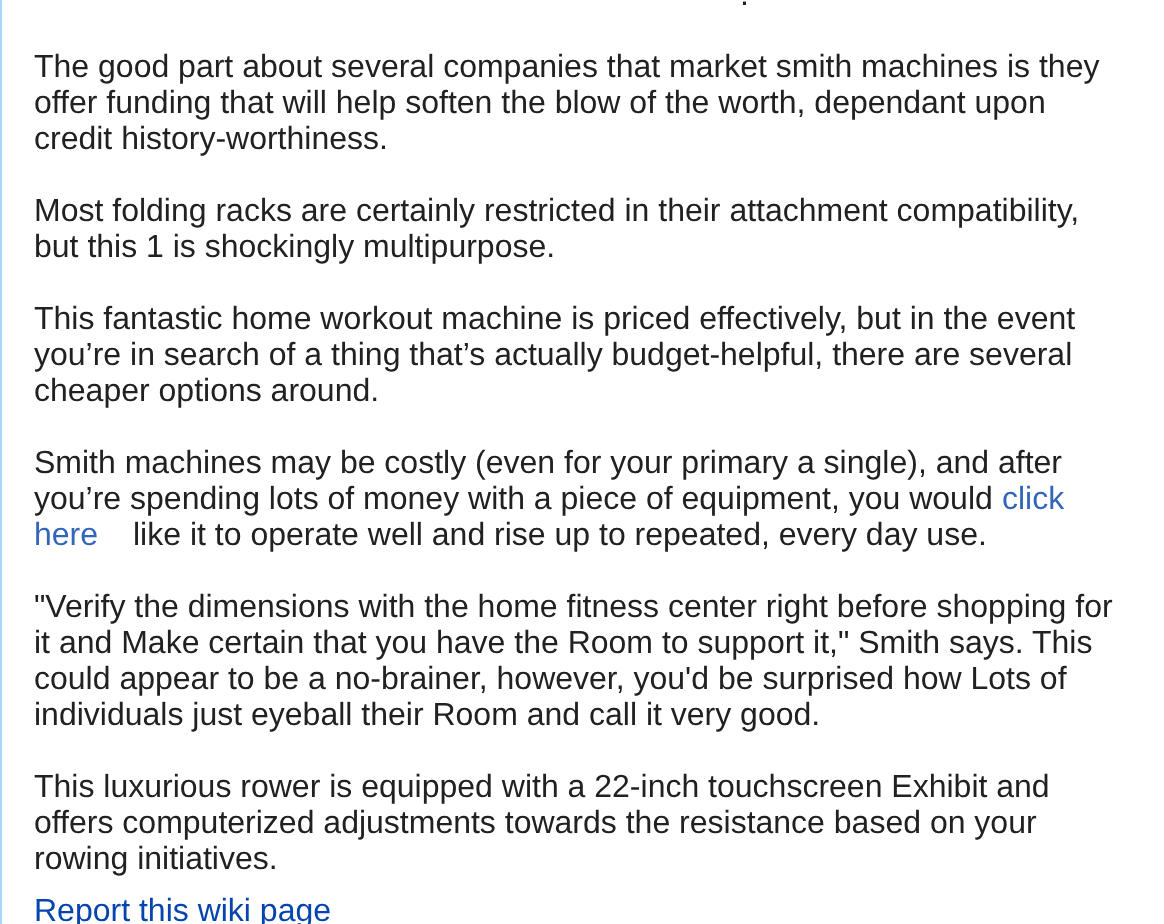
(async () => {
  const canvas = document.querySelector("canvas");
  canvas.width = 1164;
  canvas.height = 924;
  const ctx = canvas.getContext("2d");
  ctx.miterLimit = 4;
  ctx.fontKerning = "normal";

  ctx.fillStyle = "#ffffff";
  ctx.fillRect(0, 0, 1164, 924);
  ctx.fillStyle = "#a7d7f9";
  ctx.fillRect(0, 0, 2, 924);
  ctx.font = "32px Liberation Sans";
  ctx.fillStyle = "#202122";
  for (const [text, x, y] of [
    [".", 740, 5],
    ["The good part about several companies that market smith machines is they", 34, 77],
    ["offer funding that will help soften the blow of the worth, dependant upon", 34, 113],
    ["credit history-worthiness.", 34, 149],
    ["Most folding racks are certainly restricted in their attachment compatibility,", 34, 221],
    ["but this 1 is shockingly multipurpose.", 34, 257],
    ["This fantastic home workout machine is priced effectively, but in the event", 34, 329],
    ["you’re in search of a thing that’s actually budget-helpful, there are several", 34, 365],
    ["cheaper options around.", 34, 401],
    ["Smith machines may be costly (even for your primary a single), and after", 34, 473],
    ["you’re spending lots of money with a piece of equipment, you would", 34, 509],
  ]) {
    ctx.fillText(text, x, y);
  }
  ctx.fillStyle = "#3366bb";
  ctx.fillText("click", 1002, 509);
  ctx.fillText("here", 34, 545);
  ctx.fillStyle = "#202122";
  for (const [text, x, y] of [
    ["like it to operate well and rise up to repeated, every day use.", 133, 545],
    ["\"Verify the dimensions with the home fitness center right before shopping for", 34, 617],
    ["it and Make certain that you have the Room to support it,\" Smith says. This", 34, 653],
    ["could appear to be a no-brainer, however, you'd be surprised how Lots of", 34, 689],
    ["individuals just eyeball their Room and call it very good.", 34, 725],
    ["This luxurious rower is equipped with a 22-inch touchscreen Exhibit and", 34, 797],
    ["offers computerized adjustments towards the resistance based on your", 34, 833],
    ["rowing initiatives.", 34, 869],
  ]) {
    ctx.fillText(text, x, y);
  }
  ctx.fillStyle = "#0645ad";
  ctx.fillText("Report this wiki page", 34, 921);
})();
